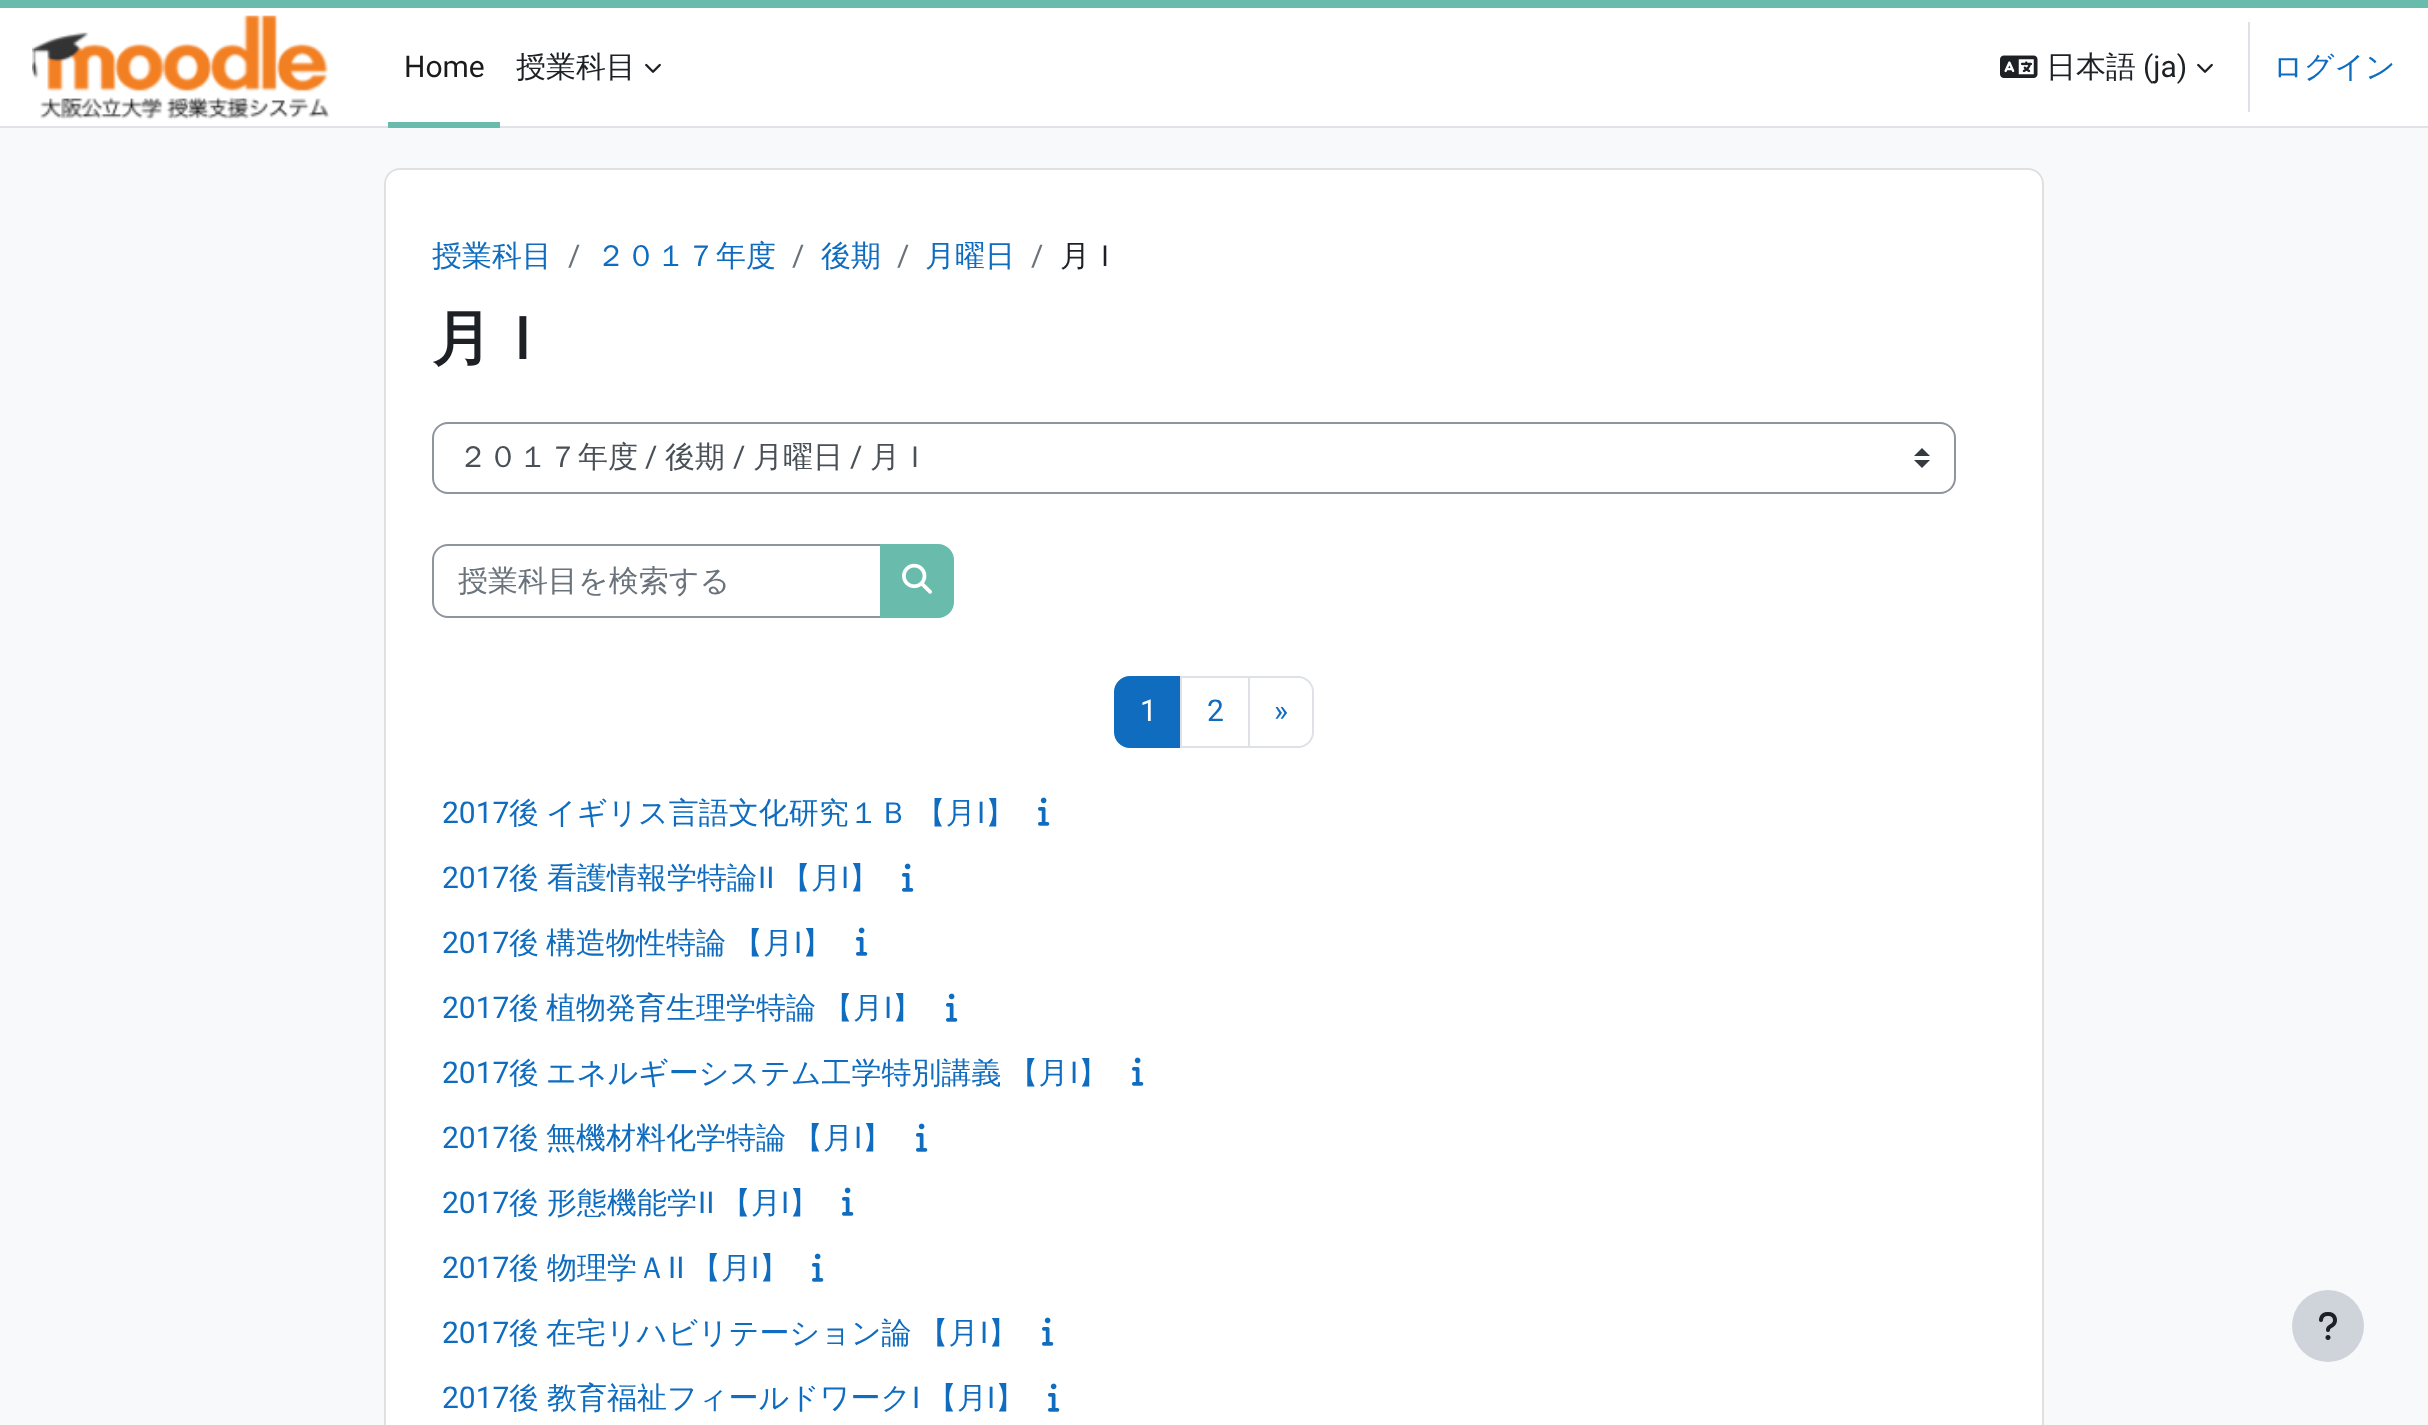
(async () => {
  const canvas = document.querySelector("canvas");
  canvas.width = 2428;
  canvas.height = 1425;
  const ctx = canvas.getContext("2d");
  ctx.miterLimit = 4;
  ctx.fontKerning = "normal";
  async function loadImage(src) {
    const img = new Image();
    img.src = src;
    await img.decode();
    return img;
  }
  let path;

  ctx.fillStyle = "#f8f9fa";
  ctx.fillRect(0, 0, 2428, 1425);
  for (const [x, y, w, h, color] of [
    [0, 8, 2428, 118, "#ffffff"],
    [0, 0, 2428, 8, "#69bbab"],
    [0, 126, 2428, 2, "#dfe2e6"],
  ]) {
    ctx.fillStyle = color;
    ctx.fillRect(x, y, w, h);
  }
  ctx.drawImage(await loadImage("img/1.png"), 32, 15, 298, 105);
  ctx.fillStyle = "#69bbab";
  ctx.fillRect(388, 122, 112, 6);
  ctx.drawImage(await loadImage("img/2.png"), 645, 63, 16, 10);
  ctx.drawImage(await loadImage("img/3.png"), 2000, 55, 38, 23);
  ctx.drawImage(await loadImage("img/2.png"), 2197, 63, 16, 10);
  ctx.fillStyle = "#dee2e6";
  ctx.fillRect(2248, 22, 2, 90);
  ctx.fillStyle = "#ffffff";
  ctx.beginPath();
  ctx.roundRect(384, 168, 1660, 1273, 16);
  ctx.fill();
  ctx.beginPath();
  ctx.roundRect(385, 169, 1658, 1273, 15);
  ctx.strokeStyle = "rgba(0, 0, 0, 0.12)";
  ctx.lineWidth = 2;
  ctx.stroke();
  ctx.fillStyle = "#343a40";
  path = new Path2D("M1922 448L1914 456H1930ZM1922 468L1914 460H1930Z");
  ctx.fill(path);
  ctx.beginPath();
  ctx.roundRect(433, 423, 1522, 70, 15);
  ctx.strokeStyle = "#8f959e";
  ctx.stroke();
  ctx.beginPath();
  ctx.roundRect(433, 545, 448, 72, [15, 0, 0, 15]);
  ctx.stroke();
  ctx.fillStyle = "#69bbab";
  ctx.beginPath();
  ctx.roundRect(881, 545, 72, 72, [0, 15, 15, 0]);
  ctx.fill();
  ctx.strokeStyle = "#69bbab";
  ctx.stroke();
  ctx.drawImage(await loadImage("img/4.png"), 902, 563, 30, 31);
  ctx.fillStyle = "#0f6cbf";
  ctx.beginPath();
  ctx.roundRect(1115, 677, 66, 70, [15, 0, 0, 15]);
  ctx.fill();
  ctx.strokeStyle = "#0f6cbf";
  ctx.stroke();
  ctx.strokeStyle = "#dee2e6";
  ctx.strokeRect(1181, 677, 68, 70);
  ctx.fillStyle = "#ffffff";
  ctx.beginPath();
  ctx.roundRect(1249, 677, 64, 70, [0, 15, 15, 0]);
  ctx.fill();
  ctx.stroke();
  ctx.drawImage(await loadImage("img/5.png"), 1038, 797, 12, 29);
  ctx.drawImage(await loadImage("img/5.png"), 902, 863, 12, 29);
  ctx.drawImage(await loadImage("img/5.png"), 856, 927, 12, 29);
  ctx.drawImage(await loadImage("img/5.png"), 946, 993, 12, 29);
  ctx.drawImage(await loadImage("img/5.png"), 1132, 1057, 12, 29);
  ctx.drawImage(await loadImage("img/5.png"), 916, 1123, 12, 29);
  ctx.drawImage(await loadImage("img/5.png"), 842, 1187, 12, 29);
  ctx.drawImage(await loadImage("img/5.png"), 812, 1253, 12, 29);
  ctx.drawImage(await loadImage("img/5.png"), 1042, 1317, 12, 29);
  ctx.drawImage(await loadImage("img/5.png"), 1048, 1383, 12, 29);
  ctx.fillStyle = "#ced4da";
  ctx.beginPath();
  ctx.arc(2328, 1326, 36, 0, Math.PI * 2);
  ctx.fill();
  ctx.drawImage(await loadImage("img/6.png"), 2319, 1312, 18, 28);
  ctx.font = "30px Roboto";
  ctx.fillStyle = "#1a1a1a";
  ctx.fillText("Home", 404, 77);
  ctx.font = "500 30px WenQuanYi Zen Hei";
  ctx.fillStyle = "#1d2125";
  ctx.fillText("授業科目", 516, 77);
  ctx.fillText("日本語", 2046, 77);
  ctx.font = "30px Roboto";
  ctx.fillText("(ja)", 2143, 77);
  ctx.font = "500 30px WenQuanYi Zen Hei";
  ctx.fillStyle = "#0f6cbf";
  ctx.fillText("ログイン", 2273, 77);
  ctx.fillText("授業科目", 432, 266);
  ctx.font = "30px Roboto";
  ctx.fillStyle = "#6a737b";
  ctx.fillText("/", 568, 266);
  ctx.font = "500 30px WenQuanYi Zen Hei";
  ctx.fillStyle = "#0f6cbf";
  ctx.fillText("２０１７年度", 596, 266);
  ctx.font = "30px Roboto";
  ctx.fillStyle = "#6a737b";
  ctx.fillText("/", 792, 266);
  ctx.font = "500 30px WenQuanYi Zen Hei";
  ctx.fillStyle = "#0f6cbf";
  ctx.fillText("後期", 821, 266);
  ctx.font = "30px Roboto";
  ctx.fillStyle = "#6a737b";
  ctx.fillText("/", 897, 266);
  ctx.font = "500 30px WenQuanYi Zen Hei";
  ctx.fillStyle = "#0f6cbf";
  ctx.fillText("月曜日", 925, 266);
  ctx.font = "30px Roboto";
  ctx.fillStyle = "#6a737b";
  ctx.fillText("/", 1031, 266);
  ctx.font = "500 30px WenQuanYi Zen Hei";
  ctx.fillStyle = "#1d2125";
  ctx.fillText("月Ｉ", 1060, 266);
  ctx.font = "bold 60px WenQuanYi Zen Hei";
  ctx.fillText("月Ｉ", 432, 359);
  ctx.font = "500 30px WenQuanYi Zen Hei";
  ctx.fillStyle = "#495057";
  ctx.fillText("２０１７年度", 458, 467);
  ctx.font = "30px Roboto";
  ctx.fillText("/", 645, 467);
  ctx.font = "500 30px WenQuanYi Zen Hei";
  ctx.fillText("後期", 665, 467);
  ctx.font = "30px Roboto";
  ctx.fillText("/", 733, 467);
  ctx.font = "500 30px WenQuanYi Zen Hei";
  ctx.fillText("月曜日", 753, 467);
  ctx.font = "30px Roboto";
  ctx.fillText("/", 850, 467);
  ctx.font = "500 30px WenQuanYi Zen Hei";
  ctx.fillText("月Ｉ", 870, 467);
  ctx.fillStyle = "#6a737b";
  ctx.fillText("授業科目を検索する", 458, 591);
  ctx.font = "30px Roboto";
  ctx.fillStyle = "#ffffff";
  ctx.fillText("1", 1140, 721);
  ctx.fillStyle = "#0f6cbf";
  for (const [text, x, y] of [
    ["2", 1207, 721],
    ["»", 1274, 721],
    ["2017", 442, 823],
  ]) {
    ctx.fillText(text, x, y);
  }
  ctx.wordSpacing = "-2px";
  ctx.font = "500 30px WenQuanYi Zen Hei";
  ctx.fillText("後 イギリス言語文化研究１Ｂ 【月", 509, 823);
  ctx.wordSpacing = "0px";
  ctx.font = "30px Roboto";
  ctx.fillText("I", 977, 823);
  ctx.font = "500 30px WenQuanYi Zen Hei";
  ctx.fillText("】", 985, 823);
  ctx.font = "30px Roboto";
  ctx.fillText("2017", 442, 888);
  ctx.wordSpacing = "-1px";
  ctx.font = "500 30px WenQuanYi Zen Hei";
  ctx.fillText("後 看護情報学特論", 509, 888);
  ctx.wordSpacing = "0px";
  ctx.font = "30px Roboto";
  ctx.fillText("II", 758, 888);
  ctx.font = "500 30px WenQuanYi Zen Hei";
  ctx.fillText("【月", 781, 888);
  ctx.font = "30px Roboto";
  ctx.fillText("I", 841, 888);
  ctx.font = "500 30px WenQuanYi Zen Hei";
  ctx.fillText("】", 849, 888);
  ctx.font = "30px Roboto";
  ctx.fillText("2017", 442, 953);
  ctx.wordSpacing = "-2px";
  ctx.font = "500 30px WenQuanYi Zen Hei";
  ctx.fillText("後 構造物性特論 【月", 509, 953);
  ctx.wordSpacing = "0px";
  ctx.font = "30px Roboto";
  ctx.fillText("I", 794, 953);
  ctx.font = "500 30px WenQuanYi Zen Hei";
  ctx.fillText("】", 802, 953);
  ctx.font = "30px Roboto";
  ctx.fillText("2017", 442, 1018);
  ctx.wordSpacing = "-2px";
  ctx.font = "500 30px WenQuanYi Zen Hei";
  ctx.fillText("後 植物発育生理学特論 【月", 509, 1018);
  ctx.wordSpacing = "0px";
  ctx.font = "30px Roboto";
  ctx.fillText("I", 884, 1018);
  ctx.font = "500 30px WenQuanYi Zen Hei";
  ctx.fillText("】", 892, 1018);
  ctx.font = "30px Roboto";
  ctx.fillText("2017", 442, 1083);
  ctx.wordSpacing = "-2px";
  ctx.font = "500 30px WenQuanYi Zen Hei";
  ctx.fillText("後 エネルギーシステム工学特別講義 【月", 509, 1083);
  ctx.wordSpacing = "0px";
  ctx.font = "30px Roboto";
  ctx.fillText("I", 1070, 1083);
  ctx.font = "500 30px WenQuanYi Zen Hei";
  ctx.fillText("】", 1078, 1083);
  ctx.font = "30px Roboto";
  ctx.fillText("2017", 442, 1148);
  ctx.wordSpacing = "-2px";
  ctx.font = "500 30px WenQuanYi Zen Hei";
  ctx.fillText("後 無機材料化学特論 【月", 509, 1148);
  ctx.wordSpacing = "0px";
  ctx.font = "30px Roboto";
  ctx.fillText("I", 854, 1148);
  ctx.font = "500 30px WenQuanYi Zen Hei";
  ctx.fillText("】", 862, 1148);
  ctx.font = "30px Roboto";
  ctx.fillText("2017", 442, 1213);
  ctx.wordSpacing = "-1px";
  ctx.font = "500 30px WenQuanYi Zen Hei";
  ctx.fillText("後 形態機能学", 509, 1213);
  ctx.wordSpacing = "0px";
  ctx.font = "30px Roboto";
  ctx.fillText("II", 698, 1213);
  ctx.font = "500 30px WenQuanYi Zen Hei";
  ctx.fillText("【月", 721, 1213);
  ctx.font = "30px Roboto";
  ctx.fillText("I", 781, 1213);
  ctx.font = "500 30px WenQuanYi Zen Hei";
  ctx.fillText("】", 789, 1213);
  ctx.font = "30px Roboto";
  ctx.fillText("2017", 442, 1278);
  ctx.wordSpacing = "-1px";
  ctx.font = "500 30px WenQuanYi Zen Hei";
  ctx.fillText("後 物理学Ａ", 509, 1278);
  ctx.wordSpacing = "0px";
  ctx.font = "30px Roboto";
  ctx.fillText("II", 668, 1278);
  ctx.font = "500 30px WenQuanYi Zen Hei";
  ctx.fillText("【月", 691, 1278);
  ctx.font = "30px Roboto";
  ctx.fillText("I", 751, 1278);
  ctx.font = "500 30px WenQuanYi Zen Hei";
  ctx.fillText("】", 759, 1278);
  ctx.font = "30px Roboto";
  ctx.fillText("2017", 442, 1343);
  ctx.wordSpacing = "-2px";
  ctx.font = "500 30px WenQuanYi Zen Hei";
  ctx.fillText("後 在宅リハビリテーション論 【月", 509, 1343);
  ctx.wordSpacing = "0px";
  ctx.font = "30px Roboto";
  ctx.fillText("I", 980, 1343);
  ctx.font = "500 30px WenQuanYi Zen Hei";
  ctx.fillText("】", 988, 1343);
  ctx.font = "30px Roboto";
  ctx.fillText("2017", 442, 1408);
  ctx.wordSpacing = "-1px";
  ctx.font = "500 30px WenQuanYi Zen Hei";
  ctx.fillText("後 教育福祉フィールドワーク", 509, 1408);
  ctx.wordSpacing = "0px";
  ctx.font = "30px Roboto";
  ctx.fillText("I", 912, 1408);
  ctx.font = "500 30px WenQuanYi Zen Hei";
  ctx.fillText("【月", 927, 1408);
  ctx.font = "30px Roboto";
  ctx.fillText("I", 987, 1408);
  ctx.font = "500 30px WenQuanYi Zen Hei";
  ctx.fillText("】", 995, 1408);
})();
